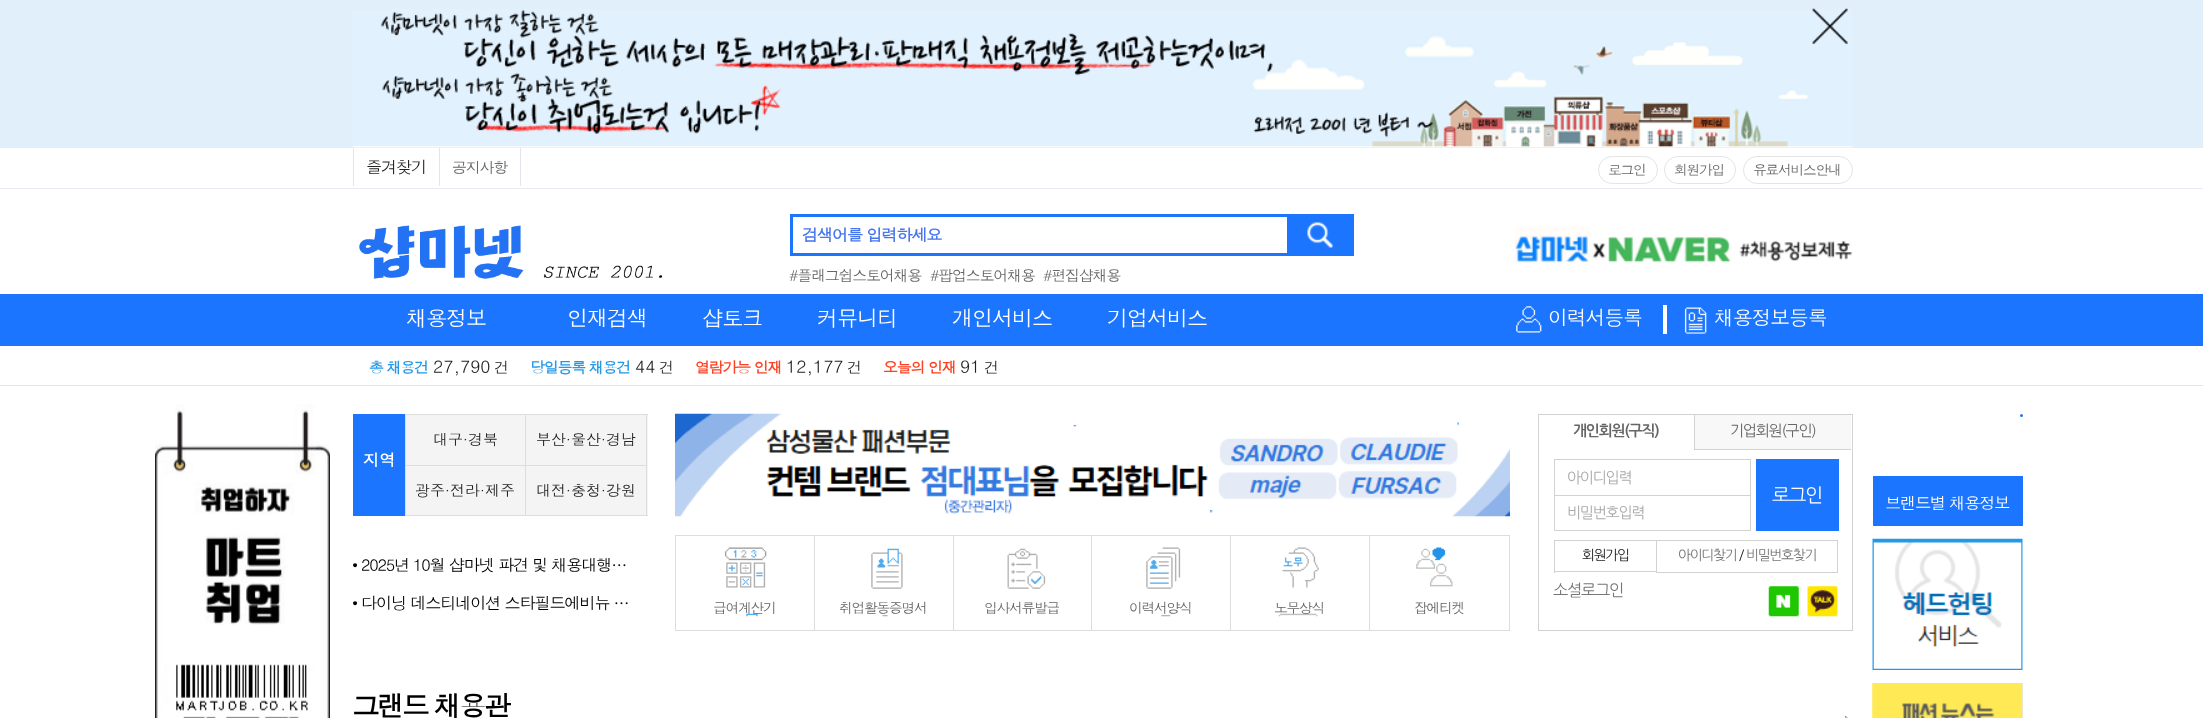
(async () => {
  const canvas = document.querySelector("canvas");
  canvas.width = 2203;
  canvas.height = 718;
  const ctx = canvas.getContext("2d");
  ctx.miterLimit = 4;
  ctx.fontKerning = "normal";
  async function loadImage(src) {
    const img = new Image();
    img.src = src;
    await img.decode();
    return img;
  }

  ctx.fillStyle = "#ffffff";
  ctx.fillRect(0, 0, 2203, 718);
  ctx.fillStyle = "#e1effa";
  ctx.fillRect(0, 0, 2203, 148);
  ctx.drawImage(await loadImage("img/2.png"), 352, 9, 1501, 139);
  ctx.drawImage(await loadImage("img/1.png"), 1812, 8, 36, 36);
  for (const [x, y, w, h, color] of [
    [0, 188, 2203, 1, "#e9eaf1"],
    [520, 148, 1, 38, "#e3e5ed"],
    [353, 148, 1, 38, "#e3e5ed"],
    [439, 148, 1, 38, "#e3e5ed"],
  ]) {
    ctx.fillStyle = color;
    ctx.fillRect(x, y, w, h);
  }
  ctx.beginPath();
  ctx.roundRect(1598.5, 156.5, 59, 27, 13.5);
  ctx.strokeStyle = "#e4e4e4";
  ctx.stroke();
  ctx.beginPath();
  ctx.roundRect(1664.5, 156.5, 71, 27, 13.5);
  ctx.stroke();
  ctx.beginPath();
  ctx.roundRect(1743.5, 156.5, 109, 27, 13.5);
  ctx.stroke();
  ctx.drawImage(await loadImage("img/3.png"), 359, 225, 304, 54);
  ctx.strokeStyle = "#1b75ff";
  ctx.lineWidth = 3;
  ctx.strokeRect(791.5, 215.5, 497, 39);
  ctx.fillStyle = "#1c75ff";
  ctx.fillRect(1290, 214, 64, 42);
  ctx.drawImage(await loadImage("img/4.png"), 1307, 222, 26, 26);
  ctx.drawImage(await loadImage("img/5.png"), 1515, 226, 337, 38);
  ctx.fillRect(0, 294, 2203, 52);
  ctx.drawImage(await loadImage("img/6.png"), 1516, 306, 26, 27);
  ctx.fillStyle = "#ffffff";
  ctx.fillRect(1663, 305, 4, 29);
  ctx.drawImage(await loadImage("img/7.png"), 1684, 307, 23, 27);
  ctx.fillStyle = "#e3e5ed";
  ctx.fillRect(0, 385, 2203, 1);
  ctx.fillStyle = "#1c75ff";
  ctx.fillRect(353, 414, 52, 102);
  ctx.fillStyle = "#f4f4f4";
  ctx.beginPath();
  ctx.rect(405.5, 414.5, 120, 101);
  ctx.fill();
  ctx.strokeStyle = "#dddddd";
  ctx.lineWidth = 1;
  ctx.stroke();
  for (const [x, y, w, h, color] of [
    [406, 465, 119, 1, "#dddddd"],
    [526, 415, 122, 100, "#f4f4f4"],
    [526, 414, 122, 1, "#dddddd"],
    [646, 414, 1, 102, "#dddddd"],
    [526, 515, 122, 1, "#dddddd"],
    [526, 465, 120, 1, "#dddddd"],
  ]) {
    ctx.fillStyle = color;
    ctx.fillRect(x, y, w, h);
  }
  ctx.drawImage(await loadImage("img/8.png"), 675, 413, 835, 104);
  ctx.strokeRect(675.5, 535.5, 139, 95);
  ctx.drawImage(await loadImage("img/9.png"), 724, 547, 43, 70);
  ctx.strokeRect(814.5, 535.5, 139, 95);
  ctx.drawImage(await loadImage("img/10.png"), 871, 548, 32, 69);
  ctx.strokeRect(953.5, 535.5, 139, 95);
  ctx.drawImage(await loadImage("img/11.png"), 1007, 548, 39, 41);
  ctx.fillStyle = "#ffffff";
  ctx.fillRect(1092, 536, 1, 94);
  ctx.strokeRect(1091.5, 535.5, 139, 95);
  ctx.drawImage(await loadImage("img/12.png"), 1146, 547, 35, 70);
  ctx.strokeRect(1230.5, 535.5, 139, 95);
  ctx.drawImage(await loadImage("img/13.png"), 1278, 547, 41, 70);
  ctx.strokeRect(1369.5, 535.5, 140, 95);
  ctx.drawImage(await loadImage("img/14.png"), 1416, 547, 37, 40);
  ctx.strokeStyle = "#d2d2d2";
  ctx.strokeRect(1538.5, 414.5, 314, 216);
  for (const [x, y, w, h, color] of [
    [1694, 415, 1, 35, "#d2d2d2"],
    [1695, 415, 156, 34, "#f8f8f8"],
    [1695, 449, 156, 1, "#d2d2d2"],
    [1554, 459, 197, 1, "#d2d2d2"],
    [1750, 459, 1, 36, "#d2d2d2"],
    [1554, 459, 1, 36, "#d2d2d2"],
    [1756, 459, 83, 72, "#1c75ff"],
  ]) {
    ctx.fillStyle = color;
    ctx.fillRect(x, y, w, h);
  }
  ctx.strokeRect(1554.5, 495.5, 196, 35);
  for (const [x, y, w, h, color] of [
    [1554, 540, 102, 1, "#d2d2d2"],
    [1554, 571, 102, 1, "#d2d2d2"],
    [1554, 540, 1, 33, "#d2d2d2"],
  ]) {
    ctx.fillStyle = color;
    ctx.fillRect(x, y, w, h);
  }
  ctx.strokeRect(1656.5, 540.5, 181, 32);
  ctx.drawImage(await loadImage("img/15.png"), 1768, 586, 31, 31);
  ctx.drawImage(await loadImage("img/16.png"), 1807, 586, 31, 31);
  ctx.drawImage(await loadImage("img/17.png"), 155, 404, 175, 314);
  ctx.fillStyle = "#1c75ff";
  ctx.beginPath();
  ctx.arc(2021.5, 415.5, 1.5, 0, Math.PI * 2);
  ctx.fill();
  ctx.fillRect(1873, 476, 150, 50);
  ctx.drawImage(await loadImage("img/18.png"), 1872, 538, 151, 132);
  ctx.drawImage(await loadImage("img/19.png"), 1872, 683, 150, 35);
  ctx.fillStyle = "#eae6c9";
  ctx.fillRect(2022, 683, 1, 35);
  ctx.drawImage(await loadImage("img/20.png"), 1844, 716, 4, 2);
  ctx.letterSpacing = "-1.25px";
  ctx.font = "16.25px Dotum";
  ctx.fillStyle = "#222222";
  ctx.fillText("즐겨찾기", 366, 173);
  ctx.font = "15px Dotum";
  ctx.fillStyle = "#666666";
  ctx.fillText("공지사항", 452, 173);
  ctx.font = "13.75px Dotum";
  for (const [text, x, y] of [
    ["로그인", 1608, 175],
    ["회원가입", 1674, 175],
    ["유료서비스안내", 1753, 175],
  ]) {
    ctx.fillText(text, x, y);
  }
  ctx.font = "bold 16.25px Dotum";
  ctx.fillStyle = "#4876ef";
  ctx.fillText("검색어를 입력하세요", 802, 241);
  ctx.font = "15px Dotum";
  ctx.fillStyle = "#666666";
  for (const [text, x, y] of [
    ["#플래그쉽스토어채용", 789, 281],
    ["#팝업스토어채용", 930, 281],
    ["#편집샵채용", 1043, 281],
  ]) {
    ctx.fillText(text, x, y);
  }
  ctx.font = "21.25px Dotum";
  ctx.fillStyle = "#ffffff";
  for (const [text, x, y] of [
    ["채용정보", 406, 326],
    ["인재검색", 567, 326],
    ["샵토크", 702, 326],
    ["커뮤니티", 817, 326],
    ["개인서비스", 952, 326],
    ["기업서비스", 1107, 326],
  ]) {
    ctx.fillText(text, x, y);
  }
  ctx.font = "20px Dotum";
  ctx.fillText("이력서등록", 1548, 325);
  ctx.fillText("채용정보등록", 1714, 325);
  ctx.font = "bold 15px Dotum";
  ctx.fillStyle = "#2399e8";
  ctx.fillText("총 채용건", 369, 373);
  ctx.letterSpacing = "0px";
  ctx.font = "17.5px Dotum";
  ctx.fillStyle = "#222222";
  ctx.fillText("27,790", 433, 373);
  ctx.letterSpacing = "-1.25px";
  ctx.font = "15px Dotum";
  ctx.fillText("건", 494, 373);
  ctx.font = "bold 15px Dotum";
  ctx.fillStyle = "#2399e8";
  ctx.fillText("당일등록 채용건", 530, 373);
  ctx.letterSpacing = "0px";
  ctx.font = "17.5px Dotum";
  ctx.fillStyle = "#222222";
  ctx.fillText("44", 635, 373);
  ctx.letterSpacing = "-1.25px";
  ctx.font = "15px Dotum";
  ctx.fillText("건", 659, 373);
  ctx.font = "bold 15px Dotum";
  ctx.fillStyle = "#fd4223";
  ctx.fillText("열람가능 인재", 695, 373);
  ctx.letterSpacing = "0px";
  ctx.font = "17.5px Dotum";
  ctx.fillStyle = "#222222";
  ctx.fillText("12,177", 786, 373);
  ctx.letterSpacing = "-1.25px";
  ctx.font = "15px Dotum";
  ctx.fillText("건", 847, 373);
  ctx.font = "bold 15px Dotum";
  ctx.fillStyle = "#fd4223";
  ctx.fillText("오늘의 인재", 883, 373);
  ctx.letterSpacing = "0px";
  ctx.font = "17.5px Dotum";
  ctx.fillStyle = "#222222";
  ctx.fillText("91", 960, 373);
  ctx.letterSpacing = "-1.25px";
  ctx.font = "15px Dotum";
  ctx.fillText("건", 984, 373);
  ctx.letterSpacing = "0px";
  ctx.font = "bold 16.25px Dotum";
  ctx.fillStyle = "#ffffff";
  ctx.fillText("지역", 363, 466);
  ctx.font = "15px Dotum";
  ctx.fillStyle = "#222222";
  for (const [text, x, y] of [
    ["대구·경북", 433, 445],
    ["광주·전라·제주", 415, 496],
    ["부산·울산·경남", 536, 445],
    ["대전·충청·강원", 536, 496],
  ]) {
    ctx.fillText(text, x, y);
  }
  ctx.letterSpacing = "-1.25px";
  ctx.font = "16.25px Dotum";
  ctx.fillStyle = "#000000";
  ctx.fillText("• 2025년 10월 샵마넷 파견 및 채용대행…", 352, 571);
  ctx.fillText("• 다이닝 데스티네이션 스타필드에비뉴 …", 352, 609);
  ctx.font = "13.75px Dotum";
  ctx.fillStyle = "#666666";
  for (const [text, x, y] of [
    ["급여계산기", 713, 613],
    ["취업활동증명서", 839, 613],
    ["입사서류발급", 984, 613],
    ["이력서양식", 1129, 613],
    ["노무상식", 1274, 613],
    ["잡에티켓", 1414, 613],
  ]) {
    ctx.fillText(text, x, y);
  }
  ctx.font = "bold 15px NanumGothic";
  ctx.fillText("개인회원(구직)", 1573, 436);
  ctx.font = "15px NanumGothic";
  ctx.fillText("기업회원(구인)", 1730, 436);
  ctx.fillStyle = "#aaaaaa";
  ctx.fillText("아이디입력", 1567, 483);
  ctx.font = "19px NanumGothic";
  ctx.fillStyle = "#ffffff";
  ctx.fillText("로그인", 1772, 502);
  ctx.font = "15px NanumGothic";
  ctx.fillStyle = "#aaaaaa";
  ctx.fillText("비밀번호입력", 1567, 518);
  ctx.font = "13.75px NanumGothic";
  ctx.fillStyle = "#222222";
  ctx.fillText("회원가입", 1582, 560);
  ctx.fillStyle = "#777777";
  ctx.fillText("아이디찾기", 1678, 560);
  ctx.fillStyle = "#222222";
  ctx.fillText("/", 1739, 560);
  ctx.fillStyle = "#777777";
  ctx.fillText("비밀번호찾기", 1746, 560);
  ctx.font = "16.25px NanumGothic";
  ctx.fillText("소셜로그인", 1553, 596);
  ctx.font = "16.25px Dotum";
  ctx.fillStyle = "#ffffff";
  ctx.fillText("브랜드별 채용정보", 1885, 509);
  ctx.letterSpacing = "-2.5px";
  ctx.font = "bold 27.5px Dotum";
  ctx.fillStyle = "#000000";
  ctx.fillText("그랜드 채용관", 352, 716);
})();
